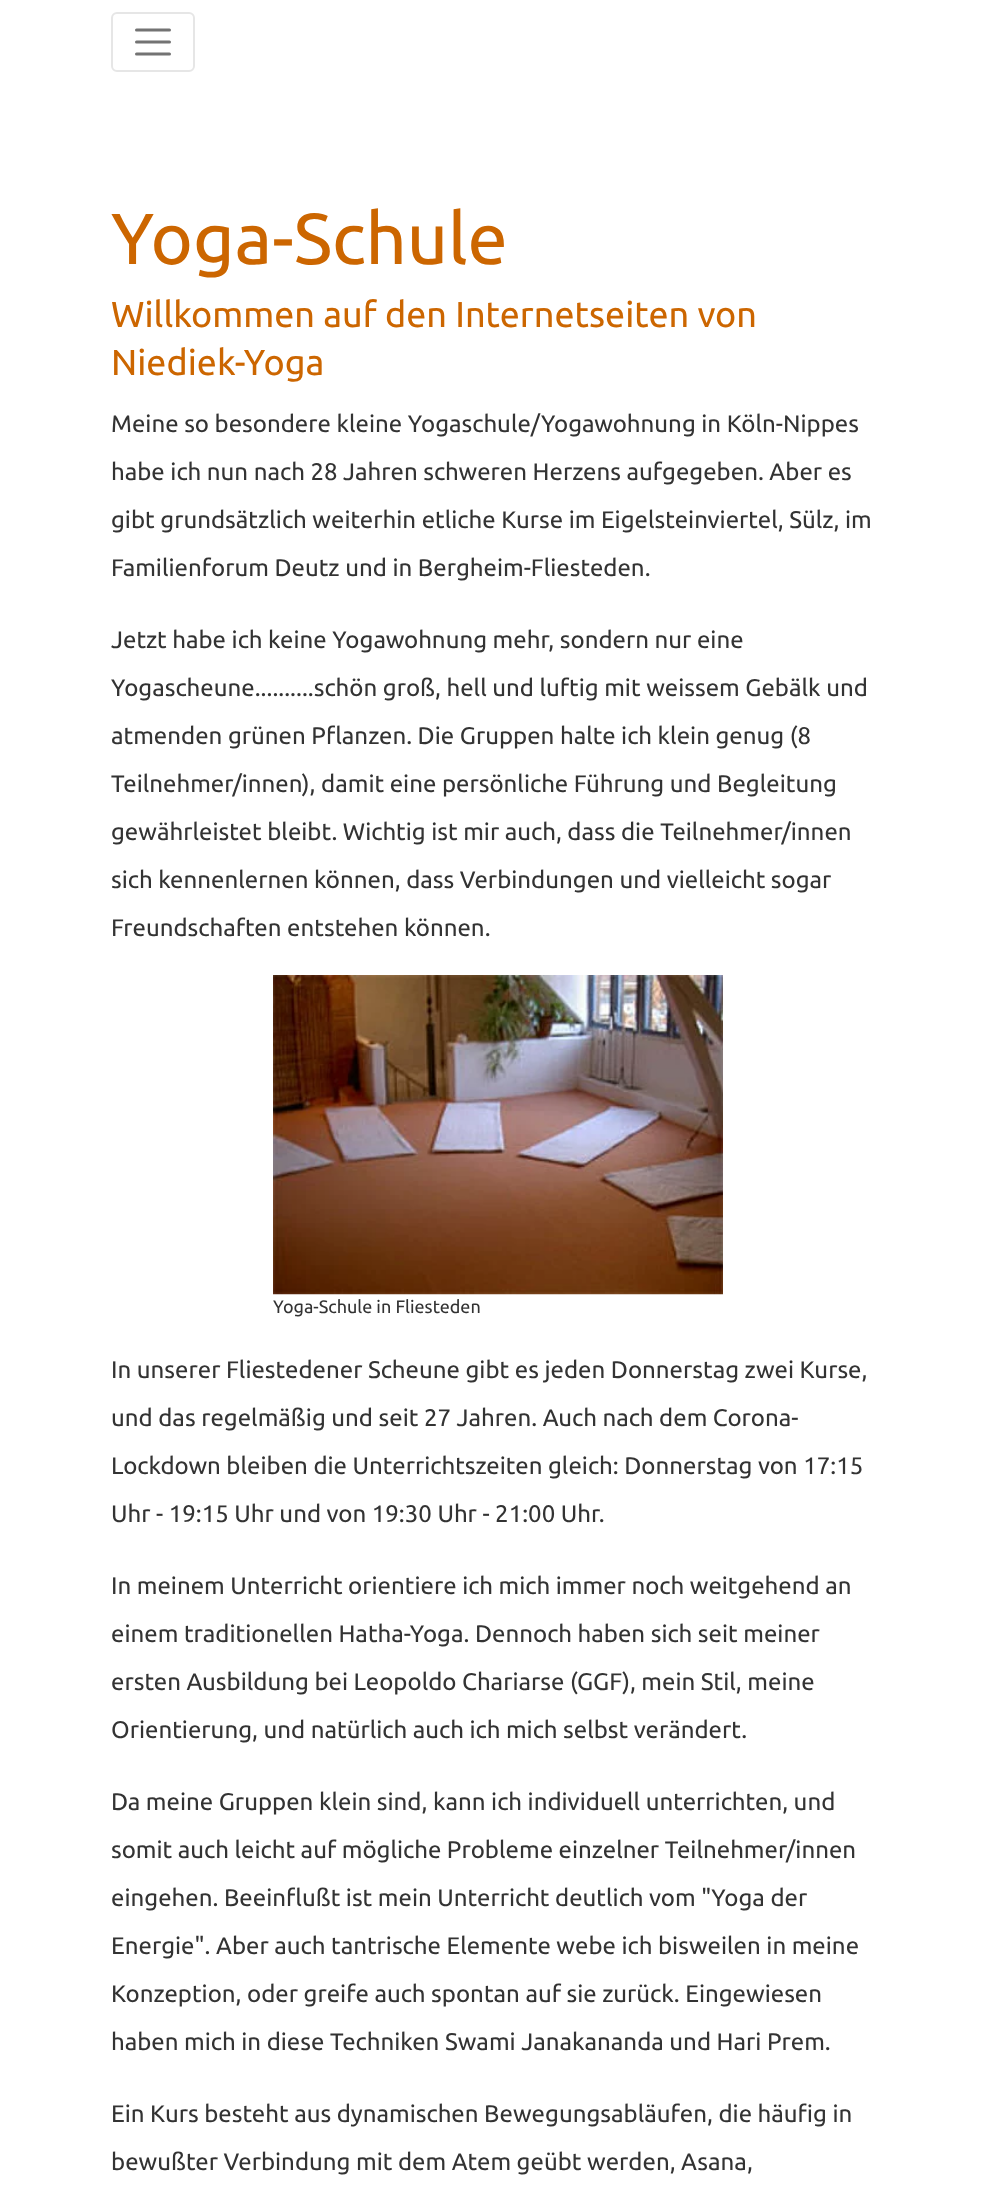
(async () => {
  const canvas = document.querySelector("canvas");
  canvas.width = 996;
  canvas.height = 2191;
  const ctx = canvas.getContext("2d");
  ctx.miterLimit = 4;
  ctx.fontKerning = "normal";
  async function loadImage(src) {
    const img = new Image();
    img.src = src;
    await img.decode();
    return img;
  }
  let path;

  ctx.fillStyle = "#ffffff";
  ctx.fillRect(0, 0, 996, 2191);
  ctx.beginPath();
  ctx.roundRect(112, 13, 82, 58, 5);
  ctx.strokeStyle = "#e6e6e6";
  ctx.lineWidth = 2;
  ctx.stroke();
  path = new Path2D("M136.5 30H169.5M136.5 42H169.5M136.5 54H169.5");
  ctx.strokeStyle = "#737373";
  ctx.lineWidth = 3;
  ctx.lineCap = "round";
  ctx.stroke(path);
  ctx.drawImage(await loadImage("img/1.png"), 273, 975, 450, 320);
  ctx.font = "72px Ubuntu";
  ctx.fillStyle = "#cc6600";
  ctx.fillText("Yoga-Schule", 111, 264);
  ctx.font = "36px Ubuntu";
  ctx.fillText("Willkommen auf den Internetseiten von", 111, 327);
  ctx.fillText("Niediek-Yoga", 111, 375);
  ctx.font = "24px Ubuntu";
  ctx.fillStyle = "#333333";
  for (const [text, x, y] of [
    ["Meine so besondere kleine Yogaschule/Yogawohnung in Köln-Nippes", 111, 432],
    ["habe ich nun nach 28 Jahren schweren Herzens aufgegeben. Aber es", 111, 480],
    ["gibt grundsätzlich weiterhin etliche Kurse im Eigelsteinviertel, Sülz, im", 111, 528],
    ["Familienforum Deutz und in Bergheim-Fliesteden.", 111, 576],
    ["Jetzt habe ich keine Yogawohnung mehr, sondern nur eine", 111, 648],
    ["Yogascheune..........schön groß, hell und luftig mit weissem Gebälk und", 111, 696],
    ["atmenden grünen Pflanzen. Die Gruppen halte ich klein genug (8", 111, 744],
    ["Teilnehmer/innen), damit eine persönliche Führung und Begleitung", 111, 792],
    ["gewährleistet bleibt. Wichtig ist mir auch, dass die Teilnehmer/innen", 111, 840],
    ["sich kennenlernen können, dass Verbindungen und vielleicht sogar", 111, 888],
    ["Freundschaften entstehen können.", 111, 936],
  ]) {
    ctx.fillText(text, x, y);
  }
  ctx.font = "18px Ubuntu";
  ctx.fillText("Yoga-Schule in Fliesteden", 273, 1313);
  ctx.font = "24px Ubuntu";
  for (const [text, x, y] of [
    ["In unserer Fliestedener Scheune gibt es jeden Donnerstag zwei Kurse,", 111, 1378],
    ["und das regelmäßig und seit 27 Jahren. Auch nach dem Corona-", 111, 1426],
    ["Lockdown bleiben die Unterrichtszeiten gleich: Donnerstag von 17:15", 111, 1474],
    ["Uhr - 19:15 Uhr und von 19:30 Uhr - 21:00 Uhr.", 111, 1522],
    ["In meinem Unterricht orientiere ich mich immer noch weitgehend an", 111, 1594],
    ["einem traditionellen Hatha-Yoga. Dennoch haben sich seit meiner", 111, 1642],
    ["ersten Ausbildung bei Leopoldo Chariarse (GGF), mein Stil, meine", 111, 1690],
    ["Orientierung, und natürlich auch ich mich selbst verändert.", 111, 1738],
    ["Da meine Gruppen klein sind, kann ich individuell unterrichten, und", 111, 1810],
    ["somit auch leicht auf mögliche Probleme einzelner Teilnehmer/innen", 111, 1858],
    ["eingehen. Beeinflußt ist mein Unterricht deutlich vom \"Yoga der", 111, 1906],
    ["Energie\". Aber auch tantrische Elemente webe ich bisweilen in meine", 111, 1954],
    ["Konzeption, oder greife auch spontan auf sie zurück. Eingewiesen", 111, 2002],
    ["haben mich in diese Techniken Swami Janakananda und Hari Prem.", 111, 2050],
    ["Ein Kurs besteht aus dynamischen Bewegungsabläufen, die häufig in", 111, 2122],
    ["bewußter Verbindung mit dem Atem geübt werden, Asana,", 111, 2170],
  ]) {
    ctx.fillText(text, x, y);
  }
})();
